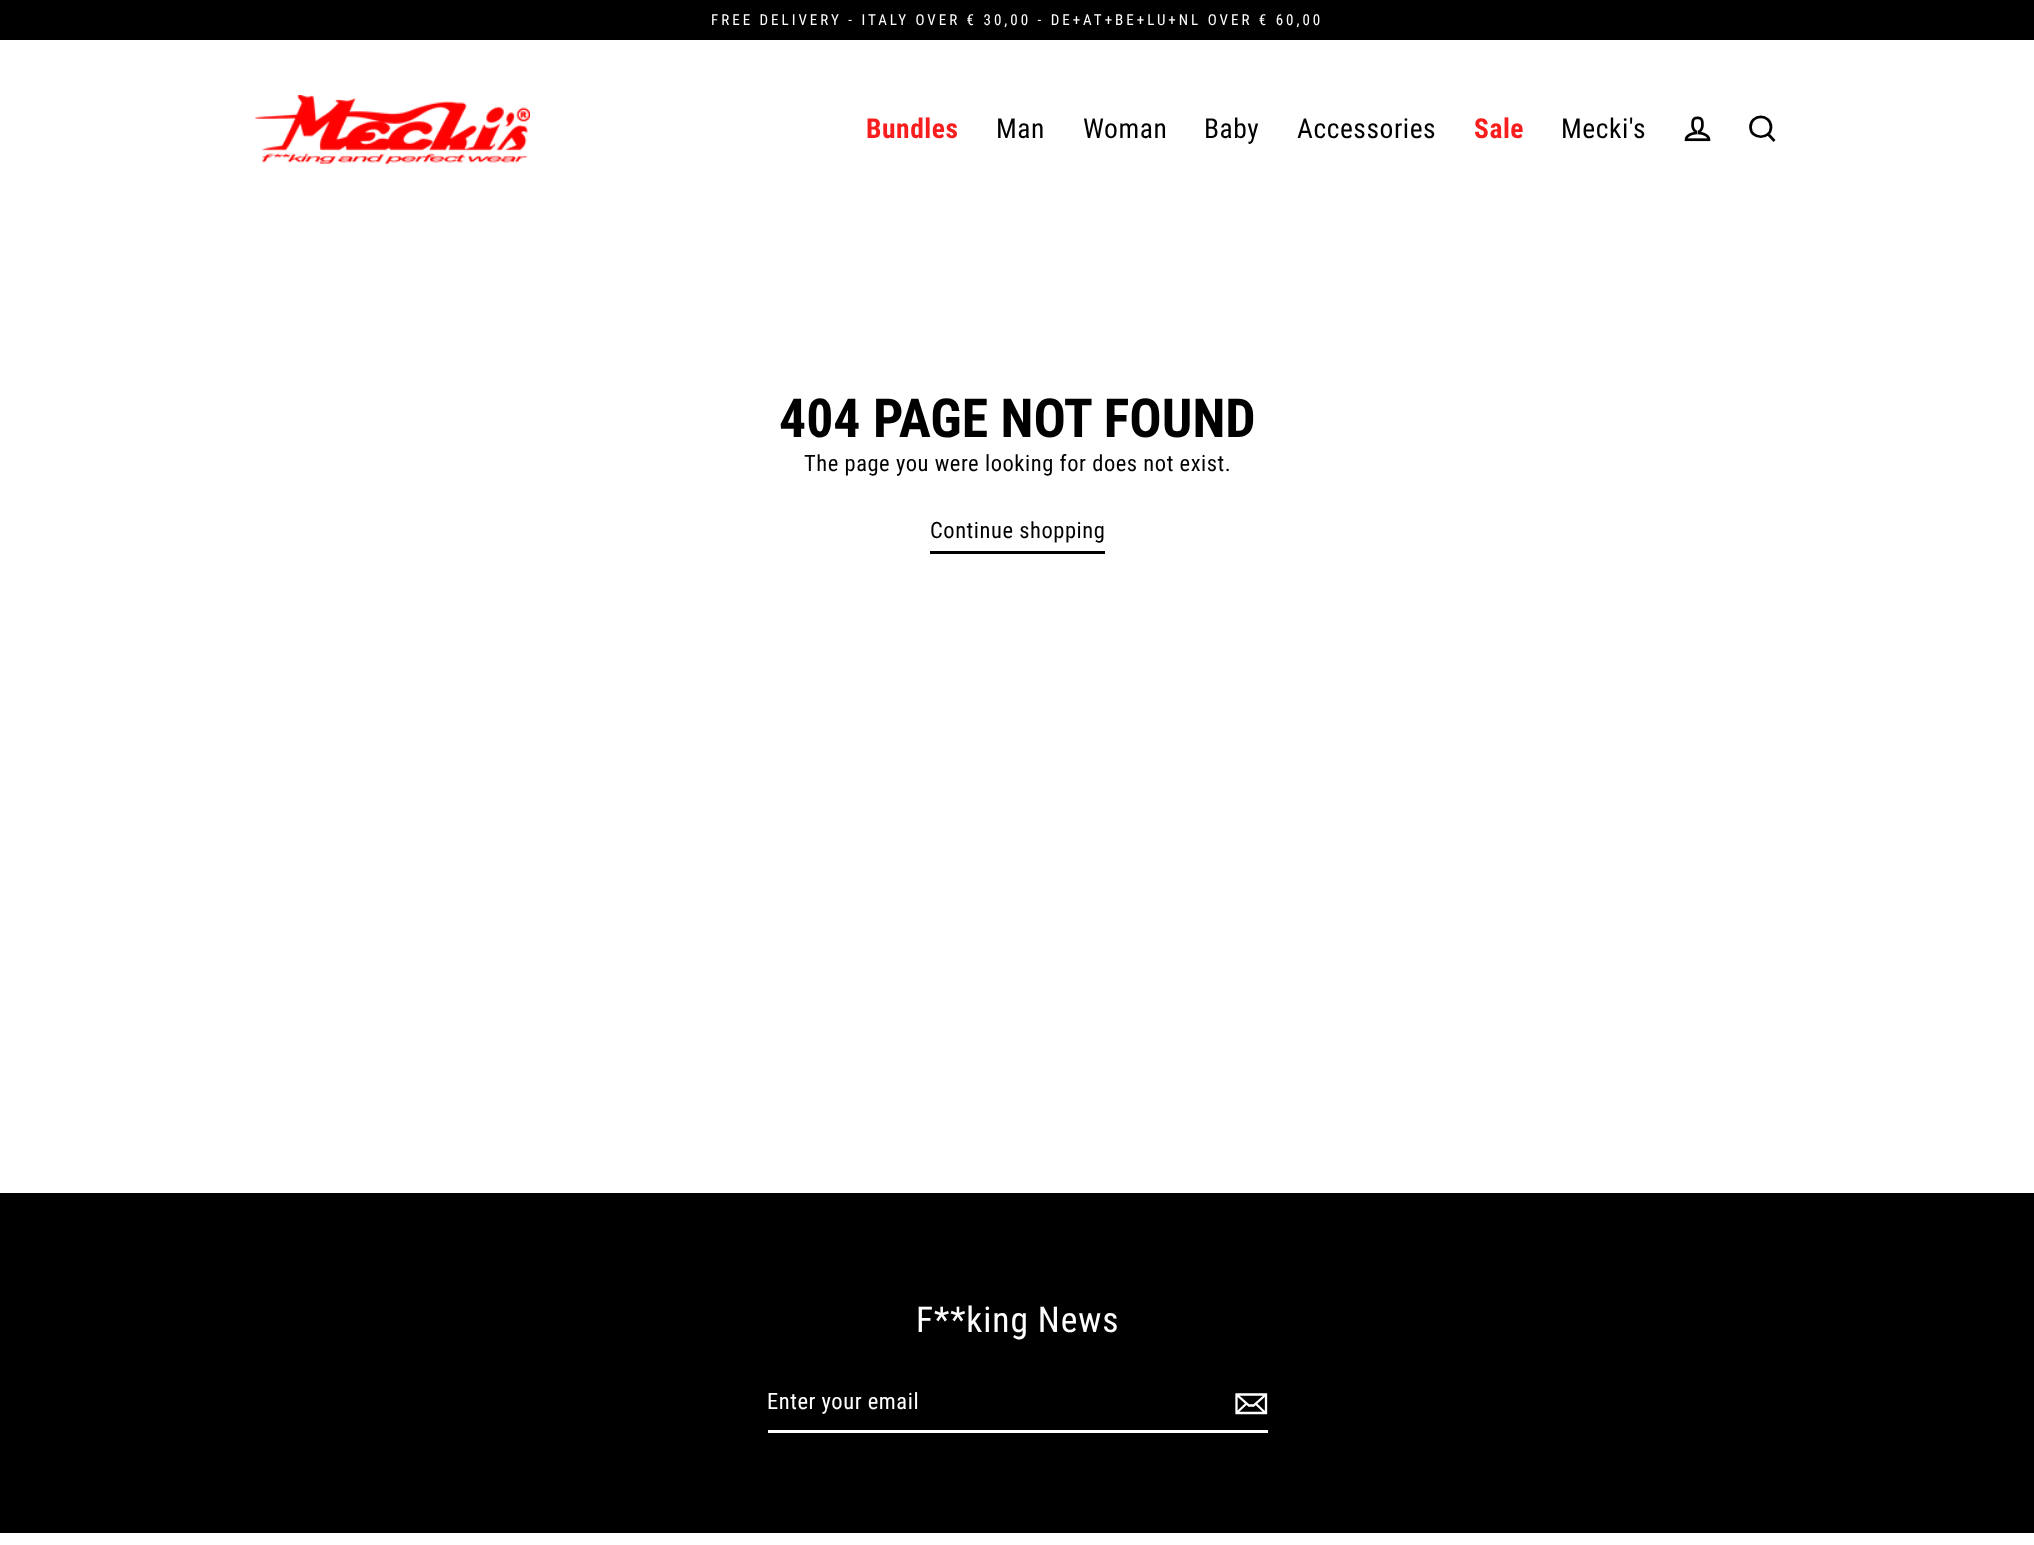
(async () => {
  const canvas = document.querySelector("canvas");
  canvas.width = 2034;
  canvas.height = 1545;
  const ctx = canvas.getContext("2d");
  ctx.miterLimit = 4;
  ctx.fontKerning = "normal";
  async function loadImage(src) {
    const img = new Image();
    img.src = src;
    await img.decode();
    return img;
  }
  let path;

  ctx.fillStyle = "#ffffff";
  ctx.fillRect(0, 0, 2034, 1545);
  ctx.fillStyle = "#000000";
  ctx.fillRect(0, 0, 2034, 40);
  ctx.drawImage(await loadImage("img/1.png"), 255, 95, 275, 69);
  ctx.drawImage(await loadImage("img/2.png"), 1684, 116, 27, 26);
  path = new Path2D("M1771 127C1771 140 1750.5 140 1750.5 127C1750.5 113.5 1771 113.5 1771 127ZM1774.5 141L1768 134");
  ctx.strokeStyle = "#000000";
  ctx.lineWidth = 2.7;
  ctx.stroke(path);
  for (const [x, y, w, h, color] of [
    [930, 551, 175, 3, "#000000"],
    [0, 1193, 2034, 340, "#000000"],
    [768, 1430, 500, 3, "#ffffff"],
  ]) {
    ctx.fillStyle = color;
    ctx.fillRect(x, y, w, h);
  }
  path = new Path2D("M1266 1413H1236.5V1394.5H1266ZM1236.5 1394.5L1249 1405.5H1253.5L1266 1394.5M1246.5 1403.5L1237 1412.5M1265.5 1413L1255.5 1403.5");
  ctx.strokeStyle = "#ffffff";
  ctx.lineWidth = 2.3;
  ctx.stroke(path);
  ctx.letterSpacing = "3px";
  ctx.font = "15px Roboto Condensed";
  ctx.fillText("FREE DELIVERY - ITALY OVER € 30,00 - DE+AT+BE+LU+NL OVER € 60,00", 711, 25);
  ctx.letterSpacing = "0.55px";
  ctx.font = "bold 27.5px Roboto Condensed";
  ctx.fillStyle = "#f91e1e";
  ctx.fillText("Bundles", 866, 138);
  ctx.font = "27.5px Roboto Condensed";
  ctx.fillStyle = "#000000";
  for (const [text, x, y] of [
    ["Man", 996, 138],
    ["Woman", 1083, 138],
    ["Baby", 1204, 138],
    ["Accessories", 1297, 138],
  ]) {
    ctx.fillText(text, x, y);
  }
  ctx.font = "bold 27.5px Roboto Condensed";
  ctx.fillStyle = "#f91e1e";
  ctx.fillText("Sale", 1474, 138);
  ctx.font = "27.5px Roboto Condensed";
  ctx.fillStyle = "#000000";
  ctx.fillText("Mecki's", 1561, 138);
  ctx.letterSpacing = "0px";
  ctx.font = "bold 53.75px Roboto Condensed";
  ctx.fillText("404 PAGE NOT FOUND", 779, 437);
  ctx.letterSpacing = "0.55px";
  ctx.font = "22.5px Roboto Condensed";
  ctx.fillText("The page you were looking for does not exist.", 804, 471);
  ctx.fillText("Continue shopping", 930, 538);
  ctx.letterSpacing = "0.9px";
  ctx.font = "35.5px Roboto Condensed";
  ctx.fillStyle = "#ffffff";
  ctx.fillText("F**king News", 916, 1332);
  ctx.letterSpacing = "0.55px";
  ctx.font = "22.5px Roboto Condensed";
  ctx.fillText("Enter your email", 767, 1409);
})();
